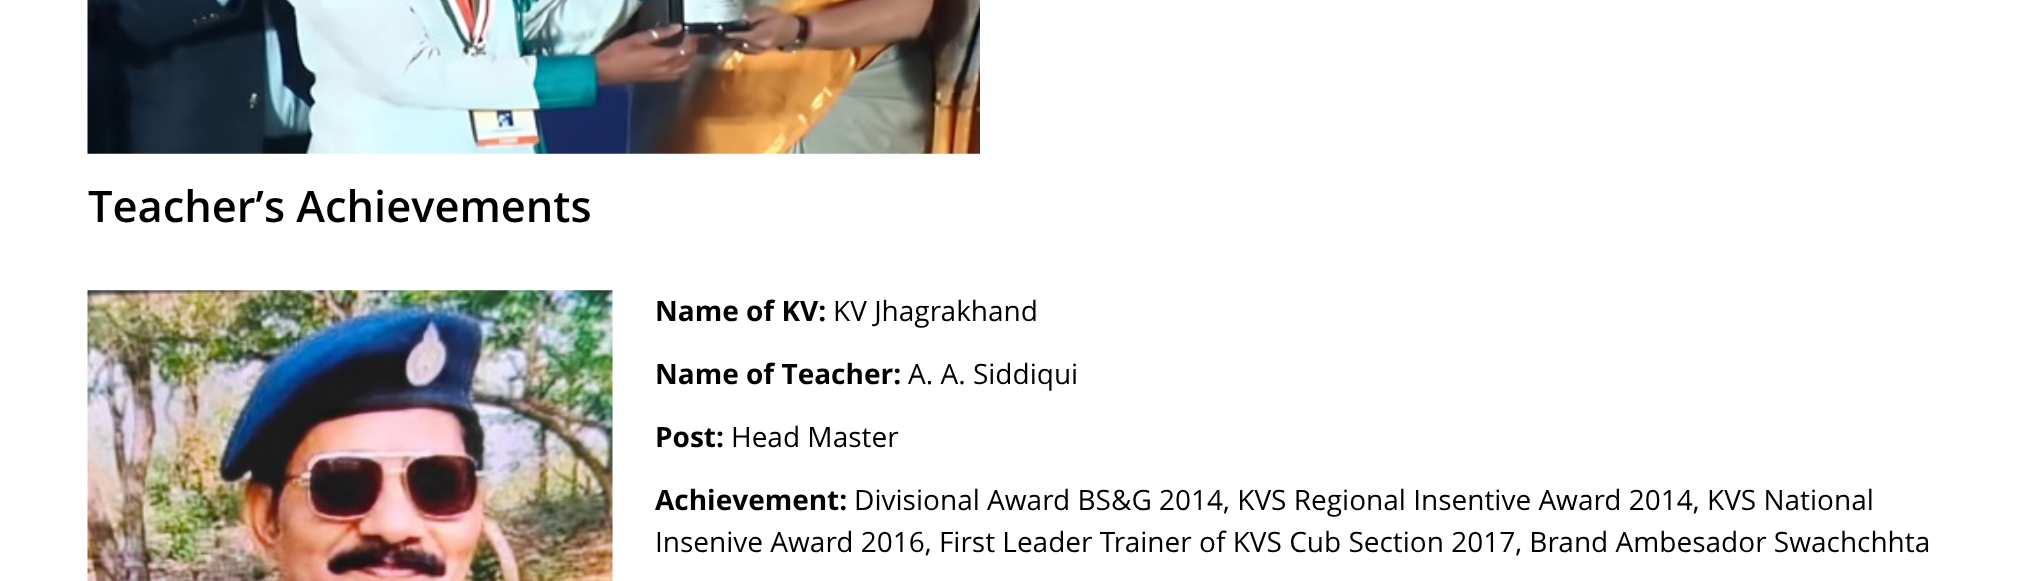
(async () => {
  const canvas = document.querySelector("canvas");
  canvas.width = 2039;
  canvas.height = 581;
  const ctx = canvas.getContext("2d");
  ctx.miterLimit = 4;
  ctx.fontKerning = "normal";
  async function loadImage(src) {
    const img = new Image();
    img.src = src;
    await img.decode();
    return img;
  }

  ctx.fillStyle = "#ffffff";
  ctx.fillRect(0, 0, 2039, 581);
  ctx.drawImage(await loadImage("img/1.png"), 87, 0, 893, 154);
  ctx.drawImage(await loadImage("img/2.png"), 87, 290, 526, 291);
  ctx.font = "600 43.4px Open Sans";
  ctx.fillStyle = "#000000";
  ctx.fillText("Teacher’s Achievements", 88, 222);
  ctx.font = "bold 28px Open Sans";
  ctx.fillText("Name of KV:", 655, 321);
  ctx.font = "28px Open Sans";
  ctx.fillText("KV Jhagrakhand", 833, 321);
  ctx.font = "bold 28px Open Sans";
  ctx.fillText("Name of Teacher:", 655, 384);
  ctx.font = "28px Open Sans";
  ctx.fillText("A. A. Siddiqui", 908, 384);
  ctx.font = "bold 28px Open Sans";
  ctx.fillText("Post:", 655, 447);
  ctx.font = "28px Open Sans";
  ctx.fillText("Head Master", 731, 447);
  ctx.font = "bold 28px Open Sans";
  ctx.fillText("Achievement:", 655, 510);
  ctx.font = "28px Open Sans";
  ctx.fillText("Divisional Award BS&G 2014, KVS Regional Insentive Award 2014, KVS National", 854, 510);
  ctx.fillText("Insenive Award 2016, First Leader Trainer of KVS Cub Section 2017, Brand Ambesador Swachchhta", 655, 552);
})();
